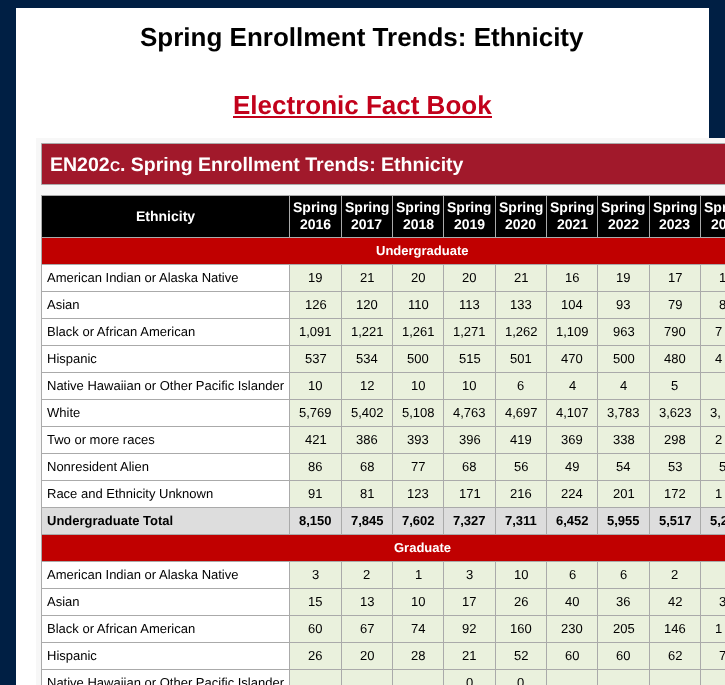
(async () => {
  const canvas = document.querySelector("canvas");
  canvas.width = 725;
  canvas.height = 685;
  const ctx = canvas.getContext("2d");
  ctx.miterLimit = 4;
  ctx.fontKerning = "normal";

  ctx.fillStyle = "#001f44";
  ctx.fillRect(0, 0, 725, 685);
  for (const [x, y, w, h, color] of [
    [16, 8, 693, 677, "#ffffff"],
    [233, 116, 259, 2, "#c2011b"],
    [36, 138, 689, 547, "#f7f7f7"],
  ]) {
    ctx.fillStyle = color;
    ctx.fillRect(x, y, w, h);
  }
  ctx.fillStyle = "#a1192b";
  ctx.beginPath();
  ctx.rect(41.5, 143.5, 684, 41);
  ctx.fill();
  ctx.strokeStyle = "#aaaaaa";
  ctx.stroke();
  for (const [x, y, w, h, color] of [
    [41, 195, 684, 1, "#aaaaaa"],
    [41, 195, 1, 490, "#aaaaaa"],
    [42, 196, 247, 41, "#000000"],
    [290, 196, 51, 41, "#000000"],
    [41, 237, 684, 1, "#aaaaaa"],
    [289, 195, 1, 43, "#aaaaaa"],
    [342, 196, 50, 41, "#000000"],
    [341, 195, 1, 43, "#aaaaaa"],
    [393, 196, 50, 41, "#000000"],
    [392, 195, 1, 43, "#aaaaaa"],
    [444, 196, 51, 41, "#000000"],
    [443, 195, 1, 43, "#aaaaaa"],
    [496, 196, 50, 41, "#000000"],
    [495, 195, 1, 43, "#aaaaaa"],
    [547, 196, 50, 41, "#000000"],
    [546, 195, 1, 43, "#aaaaaa"],
    [598, 196, 51, 41, "#000000"],
    [597, 195, 1, 43, "#aaaaaa"],
    [650, 196, 50, 41, "#000000"],
    [649, 195, 1, 43, "#aaaaaa"],
    [701, 196, 24, 41, "#000000"],
    [700, 195, 1, 43, "#aaaaaa"],
    [42, 238, 683, 26, "#c00000"],
    [41, 264, 684, 1, "#aaaaaa"],
    [42, 265, 247, 26, "#ffffff"],
    [290, 265, 51, 26, "#eaf1dd"],
    [700, 291, 25, 1, "#aaaaaa"],
    [700, 318, 25, 1, "#aaaaaa"],
    [700, 345, 25, 1, "#aaaaaa"],
    [700, 372, 25, 1, "#aaaaaa"],
    [700, 399, 25, 1, "#aaaaaa"],
    [700, 426, 25, 1, "#aaaaaa"],
    [700, 453, 25, 1, "#aaaaaa"],
    [700, 480, 25, 1, "#aaaaaa"],
    [700, 507, 25, 1, "#aaaaaa"],
    [42, 508, 683, 26, "#dddddd"],
    [41, 534, 684, 1, "#aaaaaa"],
    [700, 507, 1, 28, "#aaaaaa"],
    [649, 507, 52, 1, "#aaaaaa"],
    [700, 480, 1, 28, "#aaaaaa"],
    [649, 480, 52, 1, "#aaaaaa"],
    [700, 453, 1, 28, "#aaaaaa"],
    [649, 453, 52, 1, "#aaaaaa"],
    [700, 426, 1, 28, "#aaaaaa"],
    [649, 426, 52, 1, "#aaaaaa"],
    [700, 399, 1, 28, "#aaaaaa"],
    [649, 399, 52, 1, "#aaaaaa"],
    [700, 372, 1, 28, "#aaaaaa"],
    [649, 372, 52, 1, "#aaaaaa"],
    [700, 345, 1, 28, "#aaaaaa"],
    [649, 345, 52, 1, "#aaaaaa"],
    [700, 318, 1, 28, "#aaaaaa"],
    [649, 318, 52, 1, "#aaaaaa"],
    [700, 291, 1, 28, "#aaaaaa"],
    [649, 291, 52, 1, "#aaaaaa"],
    [649, 507, 1, 28, "#aaaaaa"],
    [597, 507, 53, 1, "#aaaaaa"],
    [649, 480, 1, 28, "#aaaaaa"],
    [597, 480, 53, 1, "#aaaaaa"],
    [649, 453, 1, 28, "#aaaaaa"],
    [597, 453, 53, 1, "#aaaaaa"],
    [649, 426, 1, 28, "#aaaaaa"],
    [597, 426, 53, 1, "#aaaaaa"],
    [649, 399, 1, 28, "#aaaaaa"],
    [597, 399, 53, 1, "#aaaaaa"],
    [649, 372, 1, 28, "#aaaaaa"],
    [597, 372, 53, 1, "#aaaaaa"],
    [649, 345, 1, 28, "#aaaaaa"],
    [597, 345, 53, 1, "#aaaaaa"],
    [649, 318, 1, 28, "#aaaaaa"],
    [597, 318, 53, 1, "#aaaaaa"],
    [649, 291, 1, 28, "#aaaaaa"],
    [597, 291, 53, 1, "#aaaaaa"],
    [597, 507, 1, 28, "#aaaaaa"],
    [546, 507, 52, 1, "#aaaaaa"],
    [597, 480, 1, 28, "#aaaaaa"],
    [546, 480, 52, 1, "#aaaaaa"],
    [597, 453, 1, 28, "#aaaaaa"],
    [546, 453, 52, 1, "#aaaaaa"],
    [597, 426, 1, 28, "#aaaaaa"],
    [546, 426, 52, 1, "#aaaaaa"],
    [597, 399, 1, 28, "#aaaaaa"],
    [546, 399, 52, 1, "#aaaaaa"],
    [597, 372, 1, 28, "#aaaaaa"],
    [546, 372, 52, 1, "#aaaaaa"],
    [597, 345, 1, 28, "#aaaaaa"],
    [546, 345, 52, 1, "#aaaaaa"],
    [597, 318, 1, 28, "#aaaaaa"],
    [546, 318, 52, 1, "#aaaaaa"],
    [597, 291, 1, 28, "#aaaaaa"],
    [546, 291, 52, 1, "#aaaaaa"],
    [546, 507, 1, 28, "#aaaaaa"],
    [495, 507, 52, 1, "#aaaaaa"],
    [546, 480, 1, 28, "#aaaaaa"],
    [495, 480, 52, 1, "#aaaaaa"],
    [546, 453, 1, 28, "#aaaaaa"],
    [495, 453, 52, 1, "#aaaaaa"],
    [546, 426, 1, 28, "#aaaaaa"],
    [495, 426, 52, 1, "#aaaaaa"],
    [546, 399, 1, 28, "#aaaaaa"],
    [495, 399, 52, 1, "#aaaaaa"],
    [546, 372, 1, 28, "#aaaaaa"],
    [495, 372, 52, 1, "#aaaaaa"],
    [546, 345, 1, 28, "#aaaaaa"],
    [495, 345, 52, 1, "#aaaaaa"],
    [546, 318, 1, 28, "#aaaaaa"],
    [495, 318, 52, 1, "#aaaaaa"],
    [546, 291, 1, 28, "#aaaaaa"],
    [495, 291, 52, 1, "#aaaaaa"],
    [495, 507, 1, 28, "#aaaaaa"],
    [443, 507, 53, 1, "#aaaaaa"],
    [495, 480, 1, 28, "#aaaaaa"],
    [443, 480, 53, 1, "#aaaaaa"],
    [495, 453, 1, 28, "#aaaaaa"],
    [443, 453, 53, 1, "#aaaaaa"],
    [495, 426, 1, 28, "#aaaaaa"],
    [443, 426, 53, 1, "#aaaaaa"],
    [495, 399, 1, 28, "#aaaaaa"],
    [443, 399, 53, 1, "#aaaaaa"],
    [495, 372, 1, 28, "#aaaaaa"],
    [443, 372, 53, 1, "#aaaaaa"],
    [495, 345, 1, 28, "#aaaaaa"],
    [443, 345, 53, 1, "#aaaaaa"],
    [495, 318, 1, 28, "#aaaaaa"],
    [443, 318, 53, 1, "#aaaaaa"],
    [495, 291, 1, 28, "#aaaaaa"],
    [443, 291, 53, 1, "#aaaaaa"],
    [443, 507, 1, 28, "#aaaaaa"],
    [392, 507, 52, 1, "#aaaaaa"],
    [443, 480, 1, 28, "#aaaaaa"],
    [392, 480, 52, 1, "#aaaaaa"],
    [443, 453, 1, 28, "#aaaaaa"],
    [392, 453, 52, 1, "#aaaaaa"],
    [443, 426, 1, 28, "#aaaaaa"],
    [392, 426, 52, 1, "#aaaaaa"],
    [443, 399, 1, 28, "#aaaaaa"],
    [392, 399, 52, 1, "#aaaaaa"],
    [443, 372, 1, 28, "#aaaaaa"],
    [392, 372, 52, 1, "#aaaaaa"],
    [443, 345, 1, 28, "#aaaaaa"],
    [392, 345, 52, 1, "#aaaaaa"],
    [443, 318, 1, 28, "#aaaaaa"],
    [392, 318, 52, 1, "#aaaaaa"],
    [443, 291, 1, 28, "#aaaaaa"],
    [392, 291, 52, 1, "#aaaaaa"],
    [392, 507, 1, 28, "#aaaaaa"],
    [341, 507, 52, 1, "#aaaaaa"],
    [392, 480, 1, 28, "#aaaaaa"],
    [341, 480, 52, 1, "#aaaaaa"],
    [392, 453, 1, 28, "#aaaaaa"],
    [341, 453, 52, 1, "#aaaaaa"],
    [392, 426, 1, 28, "#aaaaaa"],
    [341, 426, 52, 1, "#aaaaaa"],
    [392, 399, 1, 28, "#aaaaaa"],
    [341, 399, 52, 1, "#aaaaaa"],
    [392, 372, 1, 28, "#aaaaaa"],
    [341, 372, 52, 1, "#aaaaaa"],
    [392, 345, 1, 28, "#aaaaaa"],
    [341, 345, 52, 1, "#aaaaaa"],
    [392, 318, 1, 28, "#aaaaaa"],
    [341, 318, 52, 1, "#aaaaaa"],
    [392, 291, 1, 28, "#aaaaaa"],
    [341, 291, 52, 1, "#aaaaaa"],
    [341, 507, 1, 28, "#aaaaaa"],
    [289, 507, 53, 1, "#aaaaaa"],
    [341, 480, 1, 28, "#aaaaaa"],
    [289, 480, 53, 1, "#aaaaaa"],
    [341, 453, 1, 28, "#aaaaaa"],
    [289, 453, 53, 1, "#aaaaaa"],
    [341, 426, 1, 28, "#aaaaaa"],
    [289, 426, 53, 1, "#aaaaaa"],
    [341, 399, 1, 28, "#aaaaaa"],
    [289, 399, 53, 1, "#aaaaaa"],
    [341, 372, 1, 28, "#aaaaaa"],
    [289, 372, 53, 1, "#aaaaaa"],
    [341, 345, 1, 28, "#aaaaaa"],
    [289, 345, 53, 1, "#aaaaaa"],
    [341, 318, 1, 28, "#aaaaaa"],
    [289, 318, 53, 1, "#aaaaaa"],
    [341, 291, 1, 28, "#aaaaaa"],
    [289, 291, 53, 1, "#aaaaaa"],
    [289, 507, 1, 28, "#aaaaaa"],
    [41, 507, 249, 1, "#aaaaaa"],
    [289, 480, 1, 28, "#aaaaaa"],
    [41, 480, 249, 1, "#aaaaaa"],
    [289, 453, 1, 28, "#aaaaaa"],
    [41, 453, 249, 1, "#aaaaaa"],
    [289, 426, 1, 28, "#aaaaaa"],
    [41, 426, 249, 1, "#aaaaaa"],
    [289, 399, 1, 28, "#aaaaaa"],
    [41, 399, 249, 1, "#aaaaaa"],
    [289, 372, 1, 28, "#aaaaaa"],
    [41, 372, 249, 1, "#aaaaaa"],
    [289, 345, 1, 28, "#aaaaaa"],
    [41, 345, 249, 1, "#aaaaaa"],
    [289, 318, 1, 28, "#aaaaaa"],
    [41, 318, 249, 1, "#aaaaaa"],
    [289, 291, 1, 28, "#aaaaaa"],
    [41, 291, 249, 1, "#aaaaaa"],
    [289, 264, 1, 28, "#aaaaaa"],
    [342, 265, 50, 26, "#eaf1dd"],
    [341, 264, 1, 28, "#aaaaaa"],
    [393, 265, 50, 26, "#eaf1dd"],
    [392, 264, 1, 28, "#aaaaaa"],
    [444, 265, 51, 26, "#eaf1dd"],
    [443, 264, 1, 28, "#aaaaaa"],
    [496, 265, 50, 26, "#eaf1dd"],
    [495, 264, 1, 28, "#aaaaaa"],
    [547, 265, 50, 26, "#eaf1dd"],
    [546, 264, 1, 28, "#aaaaaa"],
    [598, 265, 51, 26, "#eaf1dd"],
    [597, 264, 1, 28, "#aaaaaa"],
    [650, 265, 50, 26, "#eaf1dd"],
    [649, 264, 1, 28, "#aaaaaa"],
    [701, 265, 24, 26, "#eaf1dd"],
    [700, 264, 1, 28, "#aaaaaa"],
    [42, 292, 247, 26, "#ffffff"],
    [290, 292, 51, 26, "#eaf1dd"],
    [342, 292, 50, 26, "#eaf1dd"],
    [393, 292, 50, 26, "#eaf1dd"],
    [444, 292, 51, 26, "#eaf1dd"],
    [496, 292, 50, 26, "#eaf1dd"],
    [547, 292, 50, 26, "#eaf1dd"],
    [598, 292, 51, 26, "#eaf1dd"],
    [650, 292, 50, 26, "#eaf1dd"],
    [701, 292, 24, 26, "#eaf1dd"],
    [42, 319, 247, 26, "#ffffff"],
    [290, 319, 51, 26, "#eaf1dd"],
    [342, 319, 50, 26, "#eaf1dd"],
    [393, 319, 50, 26, "#eaf1dd"],
    [444, 319, 51, 26, "#eaf1dd"],
    [496, 319, 50, 26, "#eaf1dd"],
    [547, 319, 50, 26, "#eaf1dd"],
    [598, 319, 51, 26, "#eaf1dd"],
    [650, 319, 50, 26, "#eaf1dd"],
    [701, 319, 24, 26, "#eaf1dd"],
    [42, 346, 247, 26, "#ffffff"],
    [290, 346, 51, 26, "#eaf1dd"],
    [342, 346, 50, 26, "#eaf1dd"],
    [393, 346, 50, 26, "#eaf1dd"],
    [444, 346, 51, 26, "#eaf1dd"],
    [496, 346, 50, 26, "#eaf1dd"],
    [547, 346, 50, 26, "#eaf1dd"],
    [598, 346, 51, 26, "#eaf1dd"],
    [650, 346, 50, 26, "#eaf1dd"],
    [701, 346, 24, 26, "#eaf1dd"],
    [42, 373, 247, 26, "#ffffff"],
    [290, 373, 51, 26, "#eaf1dd"],
    [342, 373, 50, 26, "#eaf1dd"],
    [393, 373, 50, 26, "#eaf1dd"],
    [444, 373, 51, 26, "#eaf1dd"],
    [496, 373, 50, 26, "#eaf1dd"],
    [547, 373, 50, 26, "#eaf1dd"],
    [598, 373, 51, 26, "#eaf1dd"],
    [650, 373, 50, 26, "#eaf1dd"],
    [701, 373, 24, 26, "#eaf1dd"],
    [42, 400, 247, 26, "#ffffff"],
    [290, 400, 51, 26, "#eaf1dd"],
    [342, 400, 50, 26, "#eaf1dd"],
    [393, 400, 50, 26, "#eaf1dd"],
    [444, 400, 51, 26, "#eaf1dd"],
    [496, 400, 50, 26, "#eaf1dd"],
    [547, 400, 50, 26, "#eaf1dd"],
    [598, 400, 51, 26, "#eaf1dd"],
    [650, 400, 50, 26, "#eaf1dd"],
    [701, 400, 24, 26, "#eaf1dd"],
    [42, 427, 247, 26, "#ffffff"],
    [290, 427, 51, 26, "#eaf1dd"],
    [342, 427, 50, 26, "#eaf1dd"],
    [393, 427, 50, 26, "#eaf1dd"],
    [444, 427, 51, 26, "#eaf1dd"],
    [496, 427, 50, 26, "#eaf1dd"],
    [547, 427, 50, 26, "#eaf1dd"],
    [598, 427, 51, 26, "#eaf1dd"],
    [650, 427, 50, 26, "#eaf1dd"],
    [701, 427, 24, 26, "#eaf1dd"],
    [42, 454, 247, 26, "#ffffff"],
    [290, 454, 51, 26, "#eaf1dd"],
    [342, 454, 50, 26, "#eaf1dd"],
    [393, 454, 50, 26, "#eaf1dd"],
    [444, 454, 51, 26, "#eaf1dd"],
    [496, 454, 50, 26, "#eaf1dd"],
    [547, 454, 50, 26, "#eaf1dd"],
    [598, 454, 51, 26, "#eaf1dd"],
    [650, 454, 50, 26, "#eaf1dd"],
    [701, 454, 24, 26, "#eaf1dd"],
    [42, 481, 247, 26, "#ffffff"],
    [290, 481, 51, 26, "#eaf1dd"],
    [342, 481, 50, 26, "#eaf1dd"],
    [393, 481, 50, 26, "#eaf1dd"],
    [444, 481, 51, 26, "#eaf1dd"],
    [496, 481, 50, 26, "#eaf1dd"],
    [547, 481, 50, 26, "#eaf1dd"],
    [598, 481, 51, 26, "#eaf1dd"],
    [650, 481, 50, 26, "#eaf1dd"],
    [701, 481, 24, 26, "#eaf1dd"],
    [42, 535, 683, 26, "#c00000"],
    [41, 561, 684, 1, "#aaaaaa"],
    [42, 562, 247, 26, "#ffffff"],
    [290, 562, 51, 26, "#eaf1dd"],
    [700, 588, 25, 1, "#aaaaaa"],
    [700, 615, 25, 1, "#aaaaaa"],
    [700, 642, 25, 1, "#aaaaaa"],
    [700, 669, 25, 1, "#aaaaaa"],
    [700, 669, 1, 16, "#aaaaaa"],
    [649, 669, 52, 1, "#aaaaaa"],
    [700, 642, 1, 28, "#aaaaaa"],
    [649, 642, 52, 1, "#aaaaaa"],
    [700, 615, 1, 28, "#aaaaaa"],
    [649, 615, 52, 1, "#aaaaaa"],
    [700, 588, 1, 28, "#aaaaaa"],
    [649, 588, 52, 1, "#aaaaaa"],
    [649, 669, 1, 16, "#aaaaaa"],
    [597, 669, 53, 1, "#aaaaaa"],
    [649, 642, 1, 28, "#aaaaaa"],
    [597, 642, 53, 1, "#aaaaaa"],
    [649, 615, 1, 28, "#aaaaaa"],
    [597, 615, 53, 1, "#aaaaaa"],
    [649, 588, 1, 28, "#aaaaaa"],
    [597, 588, 53, 1, "#aaaaaa"],
    [597, 669, 1, 16, "#aaaaaa"],
    [546, 669, 52, 1, "#aaaaaa"],
    [597, 642, 1, 28, "#aaaaaa"],
    [546, 642, 52, 1, "#aaaaaa"],
    [597, 615, 1, 28, "#aaaaaa"],
    [546, 615, 52, 1, "#aaaaaa"],
    [597, 588, 1, 28, "#aaaaaa"],
    [546, 588, 52, 1, "#aaaaaa"],
    [546, 669, 1, 16, "#aaaaaa"],
    [495, 669, 52, 1, "#aaaaaa"],
    [546, 642, 1, 28, "#aaaaaa"],
    [495, 642, 52, 1, "#aaaaaa"],
    [546, 615, 1, 28, "#aaaaaa"],
    [495, 615, 52, 1, "#aaaaaa"],
    [546, 588, 1, 28, "#aaaaaa"],
    [495, 588, 52, 1, "#aaaaaa"],
    [495, 669, 1, 16, "#aaaaaa"],
    [443, 669, 53, 1, "#aaaaaa"],
    [495, 642, 1, 28, "#aaaaaa"],
    [443, 642, 53, 1, "#aaaaaa"],
    [495, 615, 1, 28, "#aaaaaa"],
    [443, 615, 53, 1, "#aaaaaa"],
    [495, 588, 1, 28, "#aaaaaa"],
    [443, 588, 53, 1, "#aaaaaa"],
    [443, 669, 1, 16, "#aaaaaa"],
    [392, 669, 52, 1, "#aaaaaa"],
    [443, 642, 1, 28, "#aaaaaa"],
    [392, 642, 52, 1, "#aaaaaa"],
    [443, 615, 1, 28, "#aaaaaa"],
    [392, 615, 52, 1, "#aaaaaa"],
    [443, 588, 1, 28, "#aaaaaa"],
    [392, 588, 52, 1, "#aaaaaa"],
    [392, 669, 1, 16, "#aaaaaa"],
    [341, 669, 52, 1, "#aaaaaa"],
    [392, 642, 1, 28, "#aaaaaa"],
    [341, 642, 52, 1, "#aaaaaa"],
    [392, 615, 1, 28, "#aaaaaa"],
    [341, 615, 52, 1, "#aaaaaa"],
    [392, 588, 1, 28, "#aaaaaa"],
    [341, 588, 52, 1, "#aaaaaa"],
    [341, 669, 1, 16, "#aaaaaa"],
    [289, 669, 53, 1, "#aaaaaa"],
    [341, 642, 1, 28, "#aaaaaa"],
    [289, 642, 53, 1, "#aaaaaa"],
    [341, 615, 1, 28, "#aaaaaa"],
    [289, 615, 53, 1, "#aaaaaa"],
    [341, 588, 1, 28, "#aaaaaa"],
    [289, 588, 53, 1, "#aaaaaa"],
    [289, 669, 1, 16, "#aaaaaa"],
    [41, 669, 249, 1, "#aaaaaa"],
    [289, 642, 1, 28, "#aaaaaa"],
    [41, 642, 249, 1, "#aaaaaa"],
    [289, 615, 1, 28, "#aaaaaa"],
    [41, 615, 249, 1, "#aaaaaa"],
    [289, 588, 1, 28, "#aaaaaa"],
    [41, 588, 249, 1, "#aaaaaa"],
    [289, 561, 1, 28, "#aaaaaa"],
    [342, 562, 50, 26, "#eaf1dd"],
    [341, 561, 1, 28, "#aaaaaa"],
    [393, 562, 50, 26, "#eaf1dd"],
    [392, 561, 1, 28, "#aaaaaa"],
    [444, 562, 51, 26, "#eaf1dd"],
    [443, 561, 1, 28, "#aaaaaa"],
    [496, 562, 50, 26, "#eaf1dd"],
    [495, 561, 1, 28, "#aaaaaa"],
    [547, 562, 50, 26, "#eaf1dd"],
    [546, 561, 1, 28, "#aaaaaa"],
    [598, 562, 51, 26, "#eaf1dd"],
    [597, 561, 1, 28, "#aaaaaa"],
    [650, 562, 50, 26, "#eaf1dd"],
    [649, 561, 1, 28, "#aaaaaa"],
    [701, 562, 24, 26, "#eaf1dd"],
    [700, 561, 1, 28, "#aaaaaa"],
    [42, 589, 247, 26, "#ffffff"],
    [290, 589, 51, 26, "#eaf1dd"],
    [342, 589, 50, 26, "#eaf1dd"],
    [393, 589, 50, 26, "#eaf1dd"],
    [444, 589, 51, 26, "#eaf1dd"],
    [496, 589, 50, 26, "#eaf1dd"],
    [547, 589, 50, 26, "#eaf1dd"],
    [598, 589, 51, 26, "#eaf1dd"],
    [650, 589, 50, 26, "#eaf1dd"],
    [701, 589, 24, 26, "#eaf1dd"],
    [42, 616, 247, 26, "#ffffff"],
    [290, 616, 51, 26, "#eaf1dd"],
    [342, 616, 50, 26, "#eaf1dd"],
    [393, 616, 50, 26, "#eaf1dd"],
    [444, 616, 51, 26, "#eaf1dd"],
    [496, 616, 50, 26, "#eaf1dd"],
    [547, 616, 50, 26, "#eaf1dd"],
    [598, 616, 51, 26, "#eaf1dd"],
    [650, 616, 50, 26, "#eaf1dd"],
    [701, 616, 24, 26, "#eaf1dd"],
    [42, 643, 247, 26, "#ffffff"],
    [290, 643, 51, 26, "#eaf1dd"],
    [342, 643, 50, 26, "#eaf1dd"],
    [393, 643, 50, 26, "#eaf1dd"],
    [444, 643, 51, 26, "#eaf1dd"],
    [496, 643, 50, 26, "#eaf1dd"],
    [547, 643, 50, 26, "#eaf1dd"],
    [598, 643, 51, 26, "#eaf1dd"],
    [650, 643, 50, 26, "#eaf1dd"],
    [701, 643, 24, 26, "#eaf1dd"],
    [42, 670, 247, 15, "#ffffff"],
    [290, 670, 51, 15, "#eaf1dd"],
    [342, 670, 50, 15, "#eaf1dd"],
    [393, 670, 50, 15, "#eaf1dd"],
    [444, 670, 51, 15, "#eaf1dd"],
    [496, 670, 50, 15, "#eaf1dd"],
    [547, 670, 50, 15, "#eaf1dd"],
    [598, 670, 51, 15, "#eaf1dd"],
    [650, 670, 50, 15, "#eaf1dd"],
    [701, 670, 24, 15, "#eaf1dd"],
  ]) {
    ctx.fillStyle = color;
    ctx.fillRect(x, y, w, h);
  }
  ctx.font = "bold 26px Liberation Sans";
  ctx.fillStyle = "#000000";
  ctx.fillText("Spring Enrollment Trends: Ethnicity", 140, 46);
  ctx.fillStyle = "#c2011b";
  ctx.fillText("Electronic Fact Book", 233, 114);
  ctx.font = "bold 19.5px Liberation Sans";
  ctx.fillStyle = "#ffffff";
  ctx.fillText("EN202", 50, 171);
  ctx.font = "bold 14px Liberation Sans";
  ctx.fillText("C", 110, 171);
  ctx.font = "bold 19.5px Liberation Sans";
  ctx.fillText(". Spring Enrollment Trends: Ethnicity", 120, 171);
  ctx.font = "bold 14px Liberation Sans";
  for (const [text, x, y] of [
    ["Ethnicity", 136, 221],
    ["Spring", 293, 212],
    ["2016", 300, 229],
    ["Spring", 345, 212],
    ["2017", 351, 229],
    ["Spring", 396, 212],
    ["2018", 403, 229],
    ["Spring", 447, 212],
    ["2019", 454, 229],
    ["Spring", 499, 212],
    ["2020", 505, 229],
    ["Spring", 550, 212],
    ["2021", 557, 229],
    ["Spring", 601, 212],
    ["2022", 608, 229],
    ["Spring", 653, 212],
    ["2023", 659, 229],
    ["Spr", 704, 212],
    ["20", 711, 229],
  ]) {
    ctx.fillText(text, x, y);
  }
  ctx.font = "bold 13px Liberation Sans";
  ctx.fillText("Undergraduate", 376, 255);
  ctx.font = "13px Liberation Sans";
  ctx.fillStyle = "#000000";
  for (const [text, x, y] of [
    ["American Indian or Alaska Native", 47, 282],
    ["19", 308, 282],
    ["21", 360, 282],
    ["20", 411, 282],
    ["20", 462, 282],
    ["21", 514, 282],
    ["16", 565, 282],
    ["19", 616, 282],
    ["17", 668, 282],
    ["1", 719, 282],
    ["Asian", 47, 309],
    ["126", 305, 309],
    ["120", 356, 309],
    ["110", 408, 309],
    ["113", 459, 309],
    ["133", 510, 309],
    ["104", 561, 309],
    ["93", 616, 309],
    ["79", 668, 309],
    ["8", 719, 309],
    ["Black or African American", 47, 336],
    ["1,091", 299, 336],
    ["1,221", 351, 336],
    ["1,261", 402, 336],
    ["1,271", 453, 336],
    ["1,262", 505, 336],
    ["1,109", 556, 336],
    ["963", 613, 336],
    ["790", 664, 336],
    ["7", 715, 336],
    ["Hispanic", 47, 363],
    ["537", 305, 363],
    ["534", 356, 363],
    ["500", 407, 363],
    ["515", 459, 363],
    ["501", 510, 363],
    ["470", 561, 363],
    ["500", 613, 363],
    ["480", 664, 363],
    ["4", 715, 363],
    ["Native Hawaiian or Other Pacific Islander", 47, 390],
    ["10", 308, 390],
    ["12", 360, 390],
    ["10", 411, 390],
    ["10", 462, 390],
    ["6", 517, 390],
    ["4", 569, 390],
    ["4", 620, 390],
    ["5", 671, 390],
    ["White", 47, 417],
    ["5,769", 299, 417],
    ["5,402", 351, 417],
    ["5,108", 402, 417],
    ["4,763", 453, 417],
    ["4,697", 505, 417],
    ["4,107", 556, 417],
    ["3,783", 607, 417],
    ["3,623", 659, 417],
    ["3,", 710, 417],
    ["Two or more races", 47, 444],
    ["421", 305, 444],
    ["386", 356, 444],
    ["393", 407, 444],
    ["396", 459, 444],
    ["419", 510, 444],
    ["369", 561, 444],
    ["338", 613, 444],
    ["298", 664, 444],
    ["2", 715, 444],
    ["Nonresident Alien", 47, 471],
    ["86", 308, 471],
    ["68", 360, 471],
    ["77", 411, 471],
    ["68", 462, 471],
    ["56", 514, 471],
    ["49", 565, 471],
    ["54", 616, 471],
    ["53", 668, 471],
    ["5", 719, 471],
    ["Race and Ethnicity Unknown", 47, 498],
    ["91", 308, 498],
    ["81", 360, 498],
    ["123", 407, 498],
    ["171", 459, 498],
    ["216", 510, 498],
    ["224", 561, 498],
    ["201", 613, 498],
    ["172", 664, 498],
    ["1", 715, 498],
  ]) {
    ctx.fillText(text, x, y);
  }
  ctx.font = "bold 13px Liberation Sans";
  for (const [text, x, y] of [
    ["Undergraduate Total", 47, 525],
    ["8,150", 299, 525],
    ["7,845", 351, 525],
    ["7,602", 402, 525],
    ["7,327", 453, 525],
    ["7,311", 505, 525],
    ["6,452", 556, 525],
    ["5,955", 607, 525],
    ["5,517", 659, 525],
    ["5,2", 710, 525],
  ]) {
    ctx.fillText(text, x, y);
  }
  ctx.fillStyle = "#ffffff";
  ctx.fillText("Graduate", 394, 552);
  ctx.font = "13px Liberation Sans";
  ctx.fillStyle = "#000000";
  for (const [text, x, y] of [
    ["American Indian or Alaska Native", 47, 579],
    ["3", 312, 579],
    ["2", 363, 579],
    ["1", 415, 579],
    ["3", 466, 579],
    ["10", 514, 579],
    ["6", 569, 579],
    ["6", 620, 579],
    ["2", 671, 579],
    ["Asian", 47, 606],
    ["15", 308, 606],
    ["13", 360, 606],
    ["10", 411, 606],
    ["17", 462, 606],
    ["26", 514, 606],
    ["40", 565, 606],
    ["36", 616, 606],
    ["42", 668, 606],
    ["3", 719, 606],
    ["Black or African American", 47, 633],
    ["60", 308, 633],
    ["67", 360, 633],
    ["74", 411, 633],
    ["92", 462, 633],
    ["160", 510, 633],
    ["230", 561, 633],
    ["205", 613, 633],
    ["146", 664, 633],
    ["1", 715, 633],
    ["Hispanic", 47, 660],
    ["26", 308, 660],
    ["20", 360, 660],
    ["28", 411, 660],
    ["21", 462, 660],
    ["52", 514, 660],
    ["60", 565, 660],
    ["60", 616, 660],
    ["62", 668, 660],
    ["7", 719, 660],
    ["Native Hawaiian or Other Pacific Islander", 47, 687],
    ["0", 466, 687],
    ["0", 517, 687],
  ]) {
    ctx.fillText(text, x, y);
  }
})();
